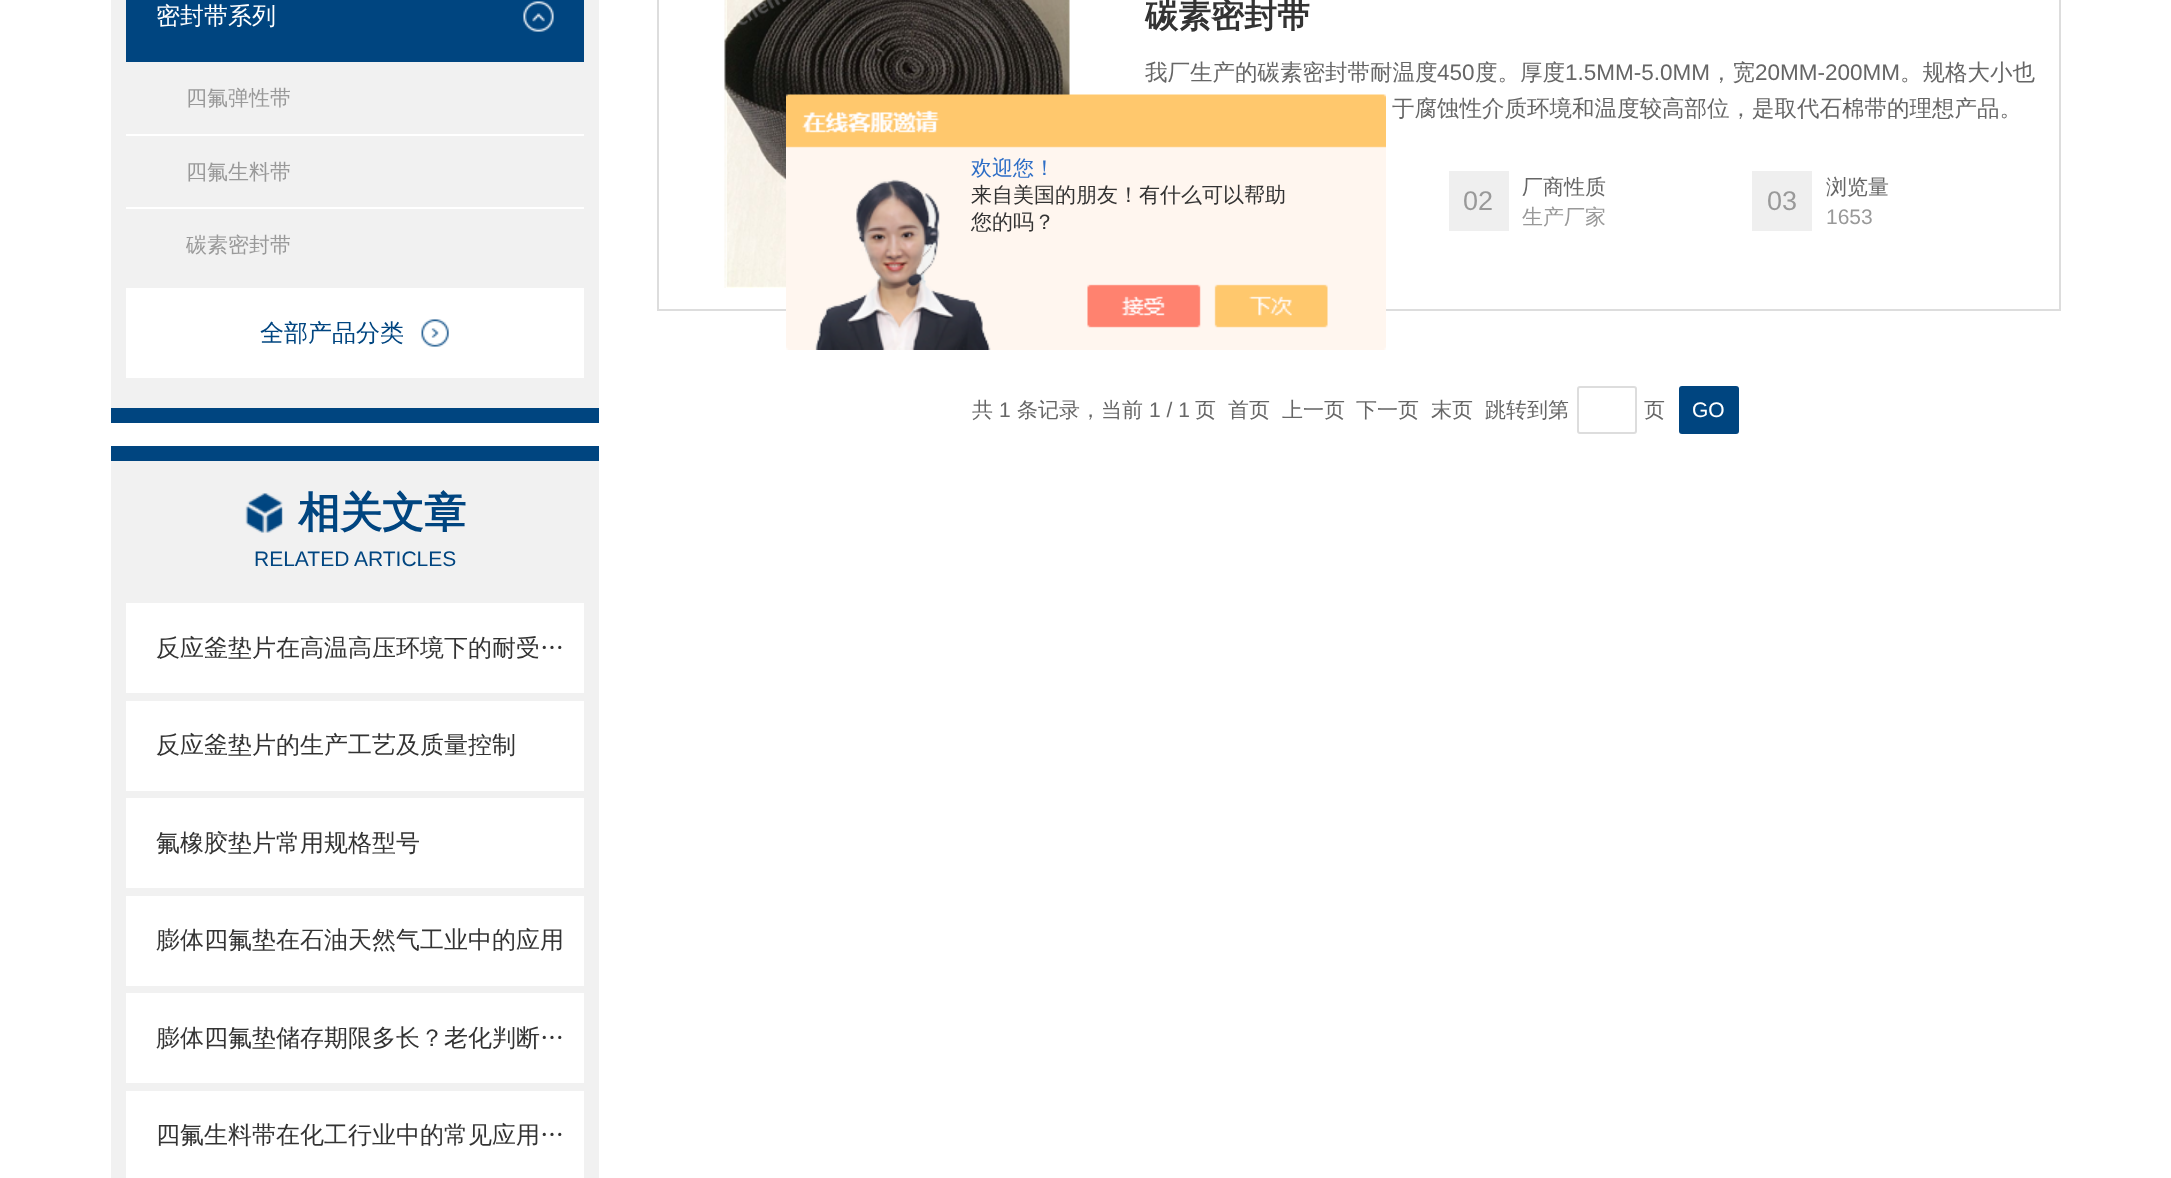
(async () => {
  const canvas = document.querySelector("canvas");
  canvas.width = 2171;
  canvas.height = 1178;
  const ctx = canvas.getContext("2d");
  ctx.miterLimit = 4;
  ctx.fontKerning = "normal";
  async function loadImage(src) {
    const img = new Image();
    img.src = src;
    await img.decode();
    return img;
  }

  ctx.fillStyle = "#ffffff";
  ctx.fillRect(0, 0, 2171, 1178);
  for (const [x, y, w, h, color] of [
    [111, 0, 488, 408, "#f1f1f1"],
    [111, 408, 488, 15, "#004580"],
    [126, 0, 458, 62, "#004580"],
  ]) {
    ctx.fillStyle = color;
    ctx.fillRect(x, y, w, h);
  }
  ctx.drawImage(await loadImage("img/1.png"), 523, 1, 31, 31);
  for (const [x, y, w, h, color] of [
    [126, 134, 458, 2, "#ffffff"],
    [126, 207, 458, 2, "#ffffff"],
    [126, 288, 458, 90, "#ffffff"],
  ]) {
    ctx.fillStyle = color;
    ctx.fillRect(x, y, w, h);
  }
  ctx.drawImage(await loadImage("img/2.png"), 421, 319, 28, 28);
  ctx.fillStyle = "#f1f1f1";
  ctx.fillRect(111, 461, 488, 717);
  ctx.fillStyle = "#004580";
  ctx.fillRect(111, 446, 488, 15);
  ctx.drawImage(await loadImage("img/3.png"), 245, 493, 38, 40);
  for (const [x, y, w, h, color] of [
    [126, 603, 458, 90, "#ffffff"],
    [126, 701, 458, 90, "#ffffff"],
    [126, 798, 458, 90, "#ffffff"],
    [126, 896, 458, 90, "#ffffff"],
    [126, 993, 458, 90, "#ffffff"],
    [126, 1091, 458, 87, "#ffffff"],
  ]) {
    ctx.fillStyle = color;
    ctx.fillRect(x, y, w, h);
  }
  ctx.strokeStyle = "#dddddd";
  ctx.lineWidth = 2;
  ctx.strokeRect(658, -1, 1402, 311);
  ctx.drawImage(await loadImage("img/4.png"), 724, 0, 346, 288);
  ctx.fillStyle = "#efefef";
  ctx.fillRect(1449, 171, 60, 60);
  ctx.fillRect(1752, 171, 60, 60);
  ctx.beginPath();
  ctx.roundRect(1578, 387, 58, 46, 2);
  ctx.stroke();
  ctx.fillStyle = "#004580";
  ctx.beginPath();
  ctx.roundRect(1679, 386, 60, 48, 3);
  ctx.fill();
  ctx.drawImage(await loadImage("img/5.png"), 786, 94, 600, 256);
  ctx.font = "500 24px WenQuanYi Zen Hei";
  ctx.fillStyle = "#ffffff";
  ctx.fillText("密封带系列", 156, 24);
  ctx.font = "500 21px WenQuanYi Zen Hei";
  ctx.fillStyle = "#999999";
  for (const [text, x, y] of [
    ["四氟弹性带", 186, 105],
    ["四氟生料带", 186, 179],
    ["碳素密封带", 186, 252],
  ]) {
    ctx.fillText(text, x, y);
  }
  ctx.font = "500 24px WenQuanYi Zen Hei";
  ctx.fillStyle = "#004580";
  ctx.fillText("全部产品分类", 260, 341);
  ctx.font = "bold 42px WenQuanYi Zen Hei";
  ctx.fillText("相关文章", 298, 527);
  ctx.font = "21px Liberation Sans";
  ctx.fillText("RELATED ARTICLES", 254, 566);
  ctx.font = "500 24px WenQuanYi Zen Hei";
  ctx.fillStyle = "#333333";
  for (const [text, x, y] of [
    ["反应釜垫片在高温高压环境下的耐受…", 156, 656],
    ["反应釜垫片的生产工艺及质量控制", 156, 753],
    ["氟橡胶垫片常用规格型号", 156, 851],
    ["膨体四氟垫在石油天然气工业中的应用", 156, 948],
    ["膨体四氟垫储存期限多长？老化判断…", 156, 1046],
    ["四氟生料带在化工行业中的常见应用…", 156, 1143],
  ]) {
    ctx.fillText(text, x, y);
  }
  ctx.font = "bold 33px WenQuanYi Zen Hei";
  ctx.fillText("碳素密封带", 1145, 27);
  ctx.font = "500 22.5px WenQuanYi Zen Hei";
  ctx.fillStyle = "#666666";
  ctx.fillText("我厂生产的碳素密封带耐温度", 1145, 80);
  ctx.font = "22.5px Liberation Sans";
  ctx.fillText("450", 1437, 80);
  ctx.font = "500 22.5px WenQuanYi Zen Hei";
  ctx.fillText("度。厚度", 1475, 80);
  ctx.font = "22.5px Liberation Sans";
  ctx.fillText("1.5MM-5.0MM", 1565, 80);
  ctx.font = "500 22.5px WenQuanYi Zen Hei";
  ctx.fillText("，宽", 1710, 80);
  ctx.font = "22.5px Liberation Sans";
  ctx.fillText("20MM-200MM", 1755, 80);
  ctx.font = "500 22.5px WenQuanYi Zen Hei";
  ctx.fillText("。规格大小也", 1900, 80);
  ctx.fillText("于腐蚀性介质环境和温度较高部位，是取代石棉带的理想产品。", 1392, 116);
  ctx.font = "500 21px WenQuanYi Zen Hei";
  ctx.fillText("厂商性质", 1522, 194);
  ctx.font = "27px Liberation Sans";
  ctx.fillStyle = "#999999";
  ctx.fillText("02", 1463, 210);
  ctx.font = "500 21px WenQuanYi Zen Hei";
  ctx.fillText("生产厂家", 1522, 224);
  ctx.fillStyle = "#666666";
  ctx.fillText("浏览量", 1826, 194);
  ctx.font = "27px Liberation Sans";
  ctx.fillStyle = "#999999";
  ctx.fillText("03", 1767, 210);
  ctx.font = "21px Liberation Sans";
  ctx.fillText("1653", 1826, 224);
  ctx.font = "500 21px WenQuanYi Zen Hei";
  ctx.fillStyle = "#666666";
  ctx.fillText("共", 972, 417);
  ctx.font = "21px Liberation Sans";
  ctx.fillText("1", 999, 417);
  ctx.font = "500 21px WenQuanYi Zen Hei";
  ctx.fillText("条记录，当前", 1017, 417);
  ctx.font = "21px Liberation Sans";
  ctx.fillText("1 / 1", 1149, 417);
  ctx.font = "500 21px WenQuanYi Zen Hei";
  for (const [text, x, y] of [
    ["页", 1195, 417],
    ["首页", 1228, 417],
    ["上一页", 1282, 417],
    ["下一页", 1356, 417],
    ["末页", 1431, 417],
    ["跳转到第", 1485, 417],
    ["页", 1644, 417],
  ]) {
    ctx.fillText(text, x, y);
  }
  ctx.font = "21px Liberation Sans";
  ctx.fillStyle = "#ffffff";
  ctx.fillText("GO", 1692, 417);
  ctx.font = "500 21px WenQuanYi Zen Hei";
  ctx.fillStyle = "#2e6ec6";
  ctx.fillText("欢迎您！", 971, 175);
  ctx.fillStyle = "#333333";
  ctx.fillText("来自美国的朋友！有什么可以帮助", 971, 202);
  ctx.fillText("您的吗？", 971, 229);
})();
